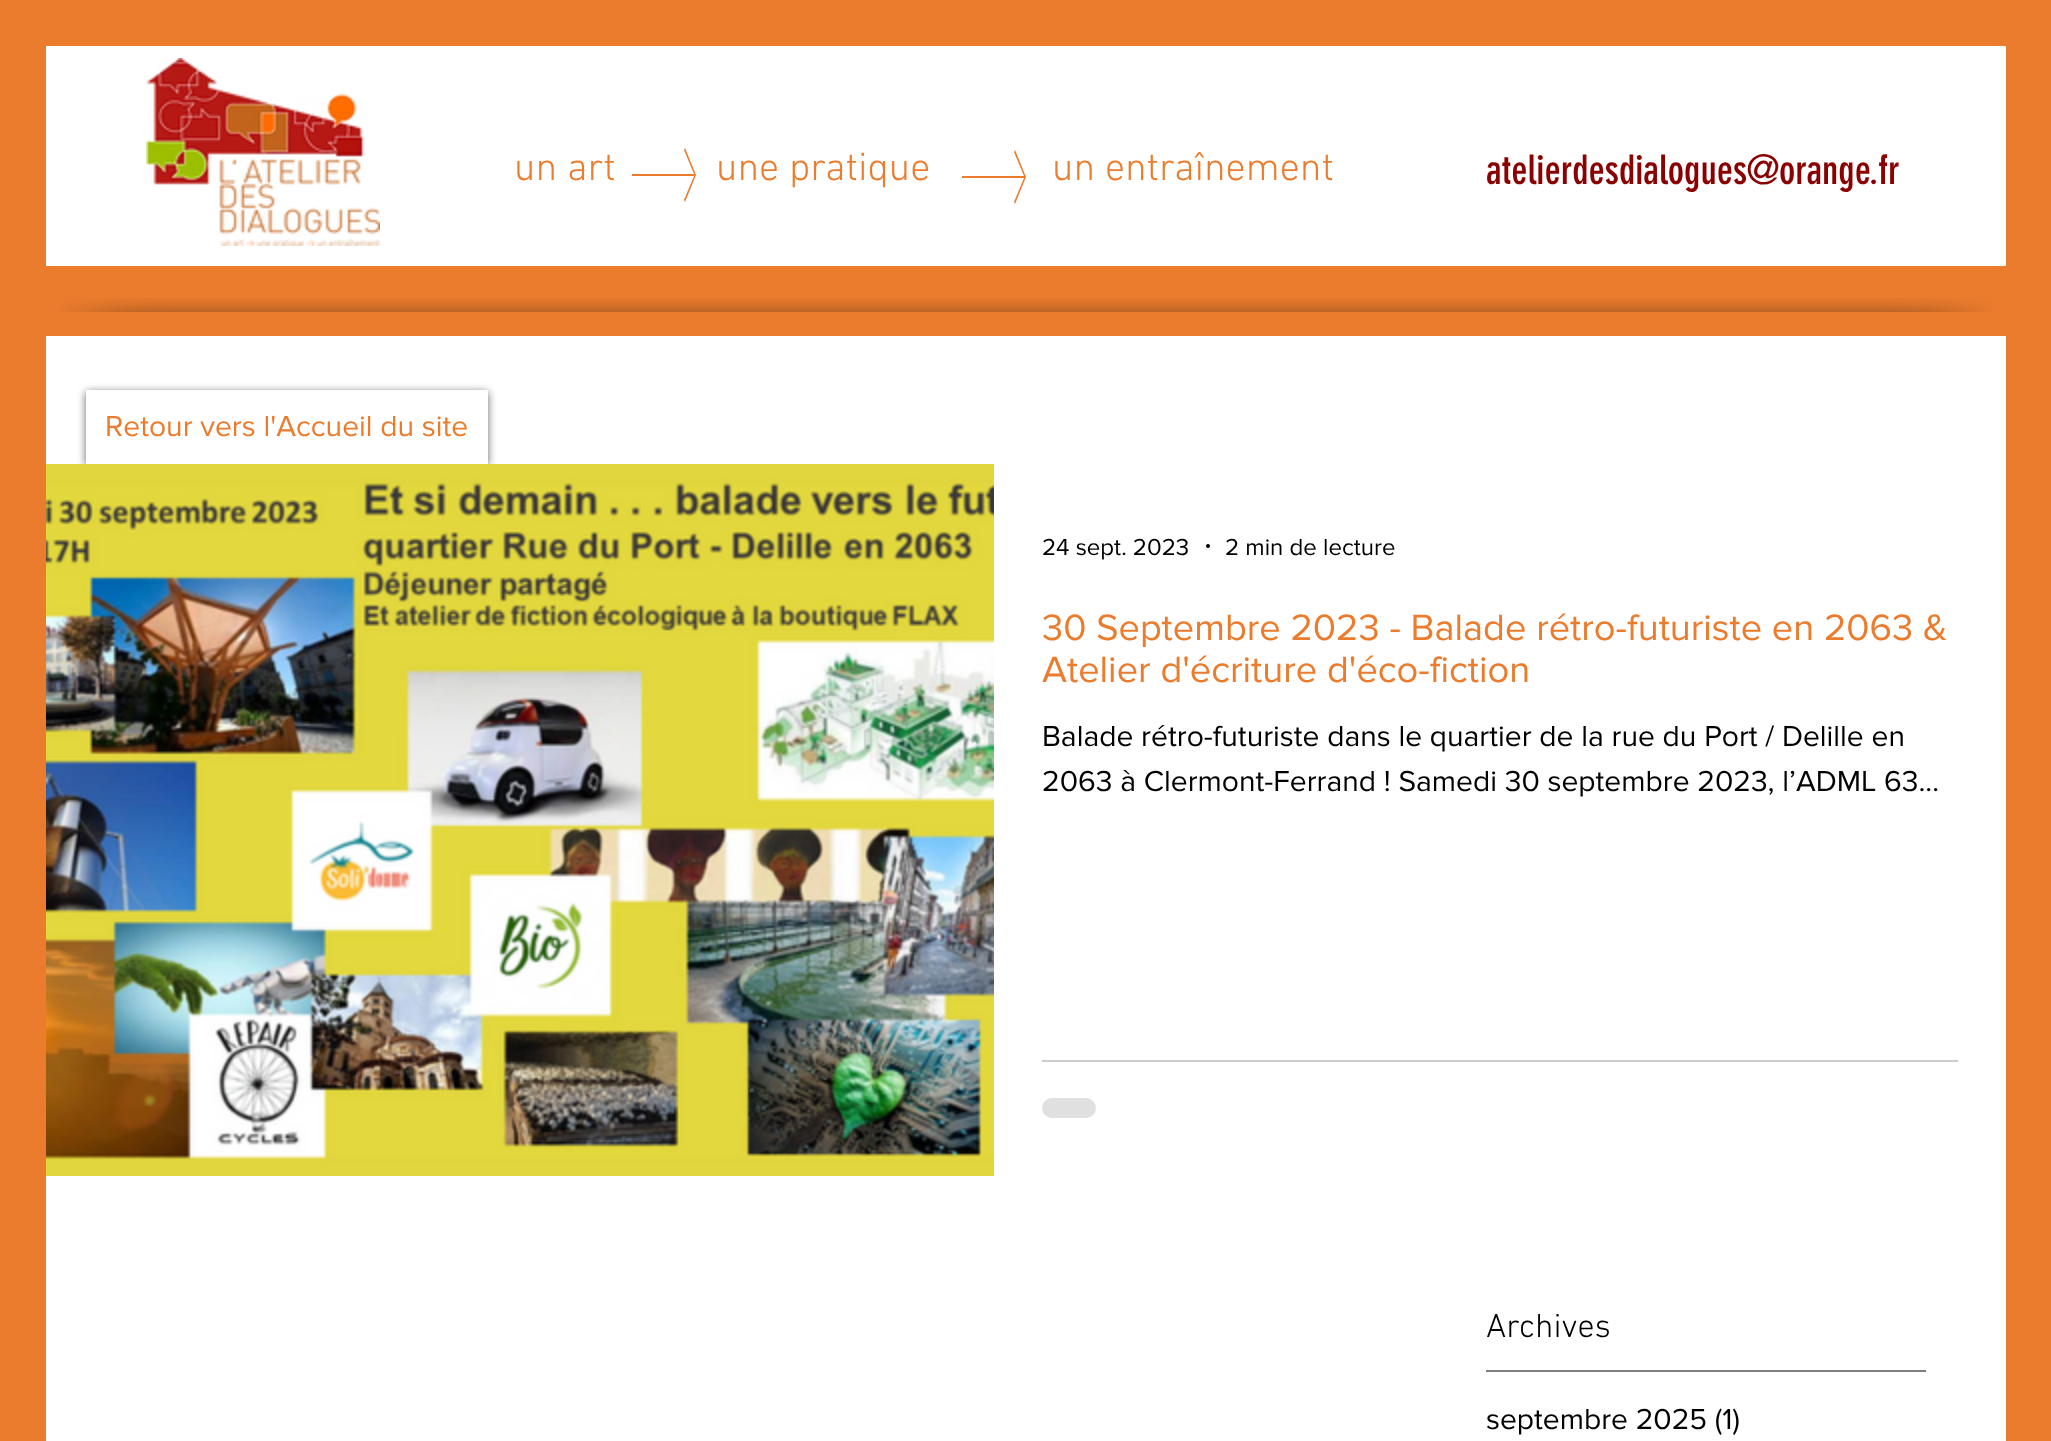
(async () => {
  const canvas = document.querySelector("canvas");
  canvas.width = 2051;
  canvas.height = 1441;
  const ctx = canvas.getContext("2d");
  ctx.miterLimit = 4;
  ctx.fontKerning = "normal";
  async function loadImage(src) {
    const img = new Image();
    img.src = src;
    await img.decode();
    return img;
  }
  let path;

  ctx.fillStyle = "#eb7c2d";
  ctx.fillRect(0, 0, 2051, 1441);
  ctx.fillStyle = "#ffffff";
  ctx.fillRect(46, 46, 1960, 220);
  ctx.drawImage(await loadImage("img/1.png"), 146, 58, 234, 188);
  ctx.fillStyle = "#eb7c2d";
  path = new Path2D("M685 148L684 150L694 174H632V176H694L684 200L685 202L696 175Z");
  ctx.fill(path);
  path = new Path2D("M1015 150L1014 152L1024 176H962V178H1024L1014 202L1015 204L1026 177Z");
  ctx.fill(path);
  ctx.drawImage(await loadImage("img/2.png"), 60, 298, 186, 14);
  ctx.drawImage(await loadImage("img/3.png"), 246, 297, 1560, 15);
  ctx.drawImage(await loadImage("img/4.png"), 1806, 298, 186, 14);
  ctx.fillStyle = "#ffffff";
  ctx.fillRect(46, 336, 1960, 1105);
  ctx.save();
  path = new Path2D("M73 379H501V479H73ZM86 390H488V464H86Z");
  ctx.clip(path, "evenodd");
  ctx.fillStyle = "rgba(0, 0, 0, 0.6)";
  ctx.filter = "blur(4px)";
  ctx.beginPath();
  ctx.rect(86, 392, 402, 74);
  ctx.fill();
  ctx.filter = "none";
  ctx.restore();
  ctx.fillRect(78, 464, 418, 10);
  ctx.drawImage(await loadImage("img/5.png"), 46, 464, 948, 712);
  ctx.fillStyle = "#000000";
  ctx.beginPath();
  ctx.arc(1208, 546, 2, 0, Math.PI * 2);
  ctx.fill();
  ctx.fillStyle = "#cccccc";
  ctx.fillRect(1042, 1060, 916, 2);
  ctx.fillStyle = "#e0e0e0";
  ctx.beginPath();
  ctx.roundRect(1042, 1098, 54, 20, 10);
  ctx.fill();
  ctx.fillStyle = "#808080";
  ctx.fillRect(1486, 1370, 440, 2);
  ctx.font = "300 40px 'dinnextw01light'";
  ctx.fillStyle = "#eb7c2d";
  for (const [text, x, y] of [
    ["un art", 514, 180],
    ["une pratique", 716, 180],
    ["un entraînement", 1052, 180],
  ]) {
    ctx.fillText(text, x, y);
  }
  ctx.font = "40px 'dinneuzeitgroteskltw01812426'";
  ctx.fillStyle = "#8b0000";
  ctx.fillText("atelierdesdialogues@orange.fr", 1486, 184);
  ctx.font = "30px 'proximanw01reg'";
  ctx.fillStyle = "#eb7c2d";
  ctx.fillText("Retour vers l'Accueil du site", 105, 436);
  ctx.font = "24px 'proximanw01reg'";
  ctx.fillStyle = "#000000";
  ctx.fillText("24 sept. 2023", 1042, 555);
  ctx.fillText("2 min de lecture", 1225, 555);
  ctx.font = "38px 'proximanw01reg'";
  ctx.fillStyle = "#eb7c2d";
  ctx.fillText("30 Septembre 2023 - Balade rétro-futuriste en 2063 &", 1042, 640);
  ctx.fillText("Atelier d'écriture d'éco-fiction", 1042, 682);
  ctx.font = "30px 'proximanw01reg'";
  ctx.fillStyle = "#000000";
  ctx.fillText("Balade rétro-futuriste dans le quartier de la rue du Port / Delille en", 1042, 746);
  ctx.fillText("2063 à Clermont-Ferrand ! Samedi 30 septembre 2023, l’ADML 63...", 1042, 791);
  ctx.font = "300 34px 'dinnextw01light'";
  ctx.fillText("Archives", 1486, 1337);
  ctx.font = "30px 'proximanw01reg'";
  ctx.fillText("septembre 2025 (1)", 1486, 1429);
})();
